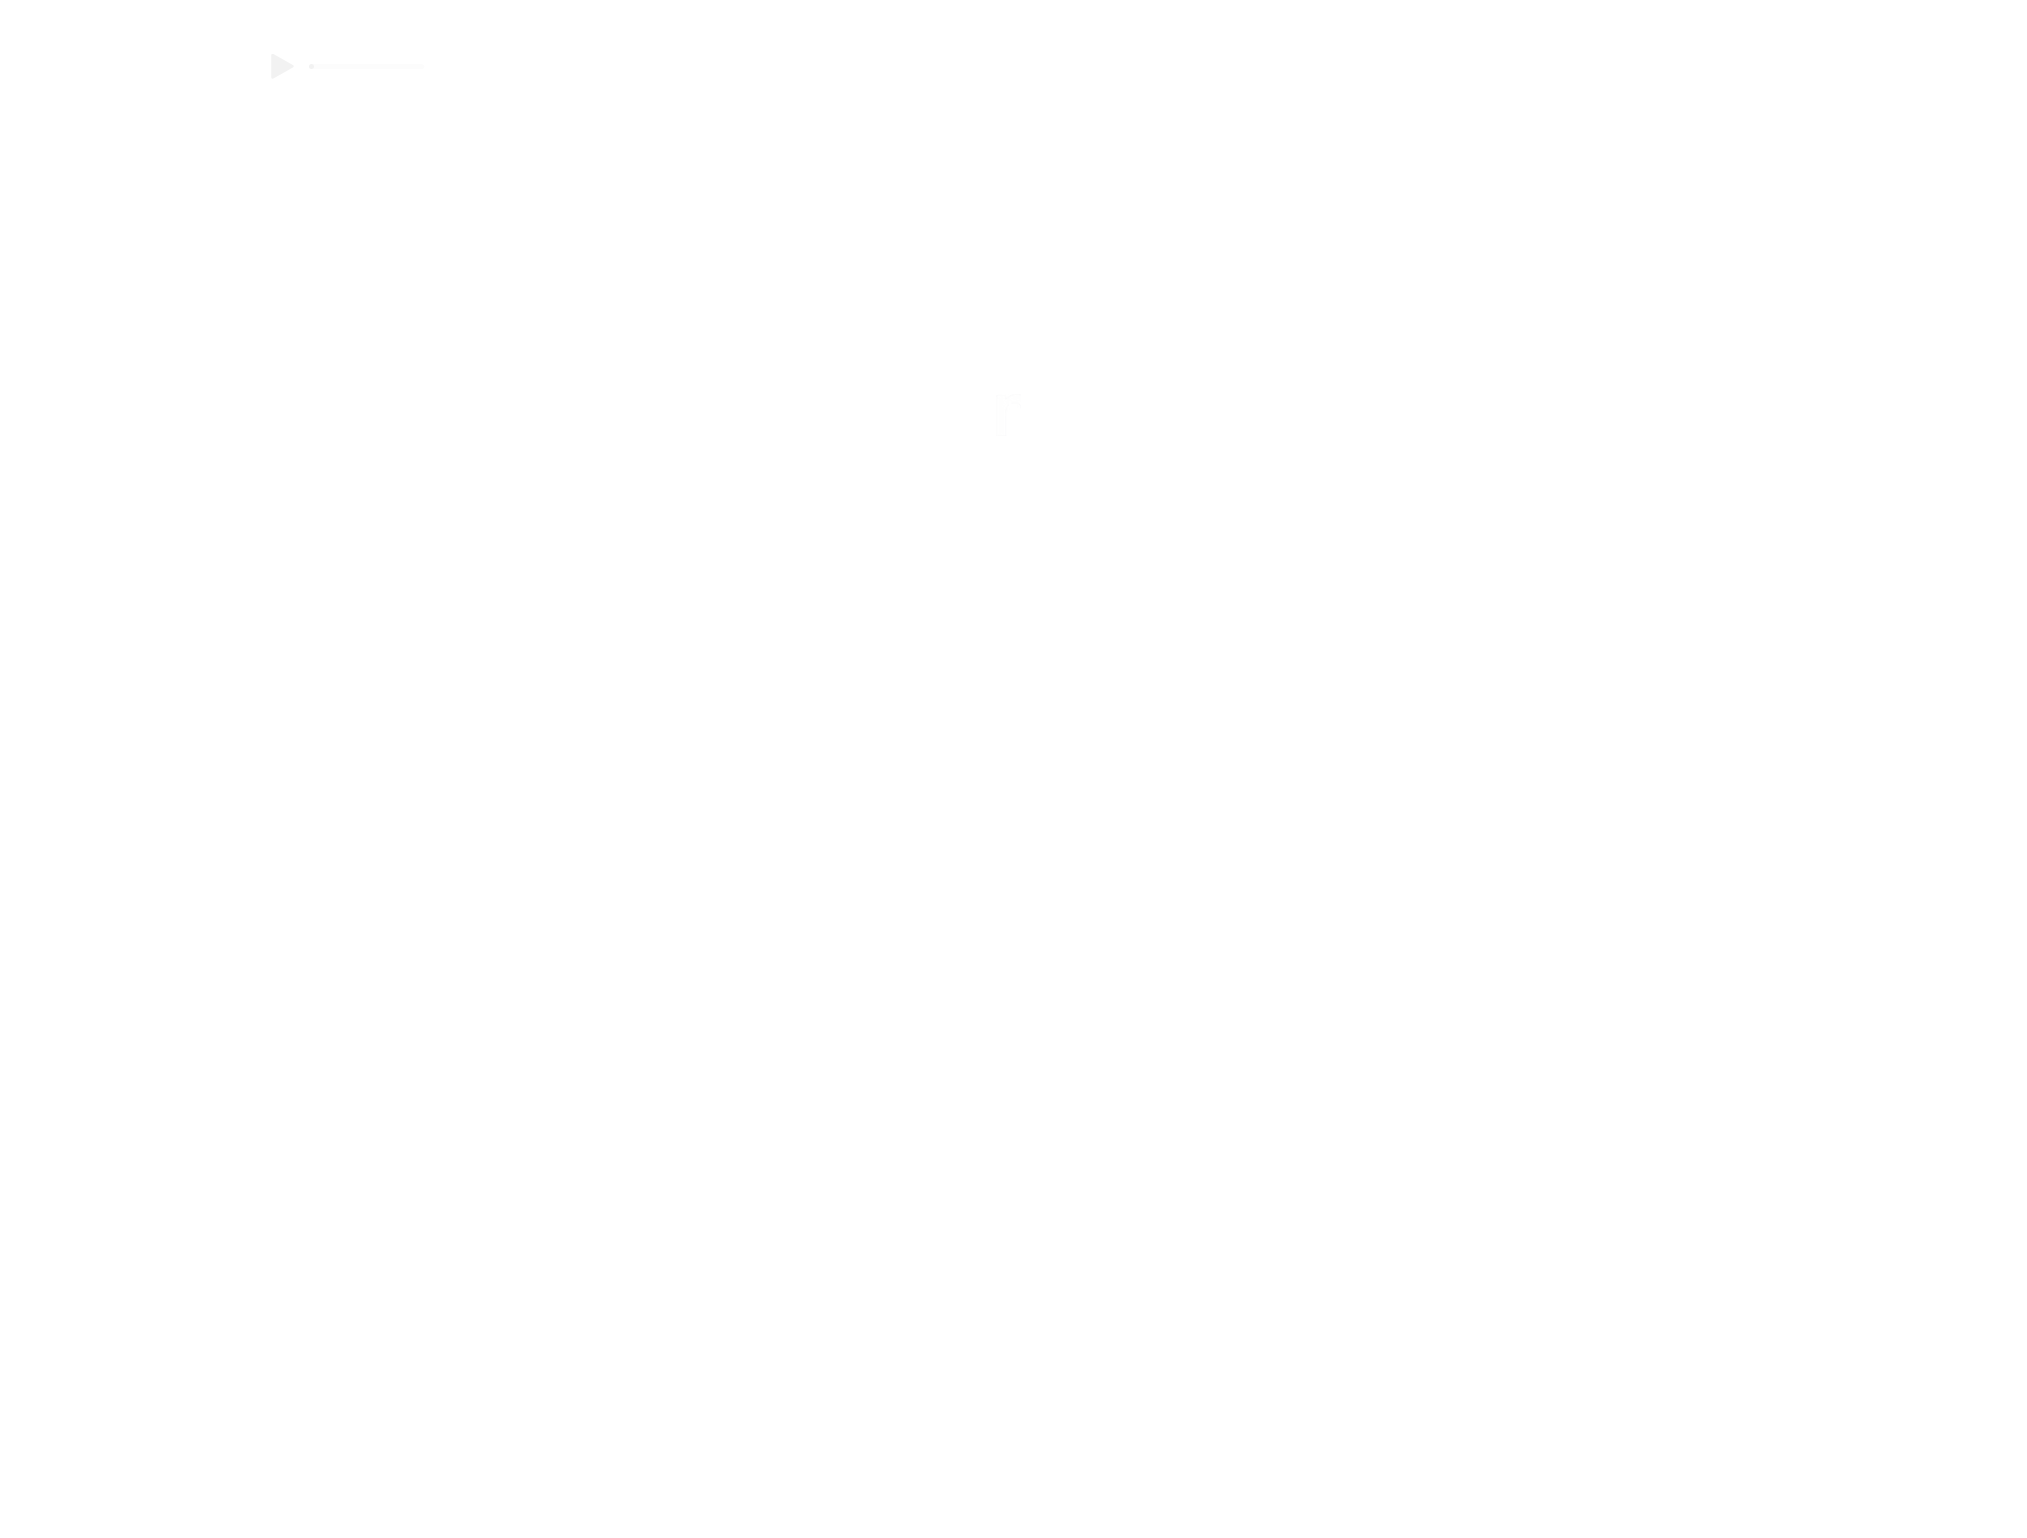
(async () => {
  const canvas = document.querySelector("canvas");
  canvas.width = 2027;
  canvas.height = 1538;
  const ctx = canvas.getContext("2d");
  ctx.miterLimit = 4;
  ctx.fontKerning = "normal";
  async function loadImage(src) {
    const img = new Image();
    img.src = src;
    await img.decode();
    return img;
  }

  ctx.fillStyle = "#ffffff";
  ctx.fillRect(0, 0, 2027, 1538);
  ctx.drawImage(await loadImage("img/1.png"), 271, 54, 23, 25);
  ctx.fillStyle = "#fcfcfc";
  ctx.beginPath();
  ctx.roundRect(311, 64, 113, 5, 2.5);
  ctx.fill();
  ctx.fillStyle = "#f2f2f2";
  ctx.beginPath();
  ctx.arc(311.5, 66.5, 2.5, 0, Math.PI * 2);
  ctx.fill();
  ctx.drawImage(await loadImage("img/2.png"), 996, 394, 25, 42);
})();
